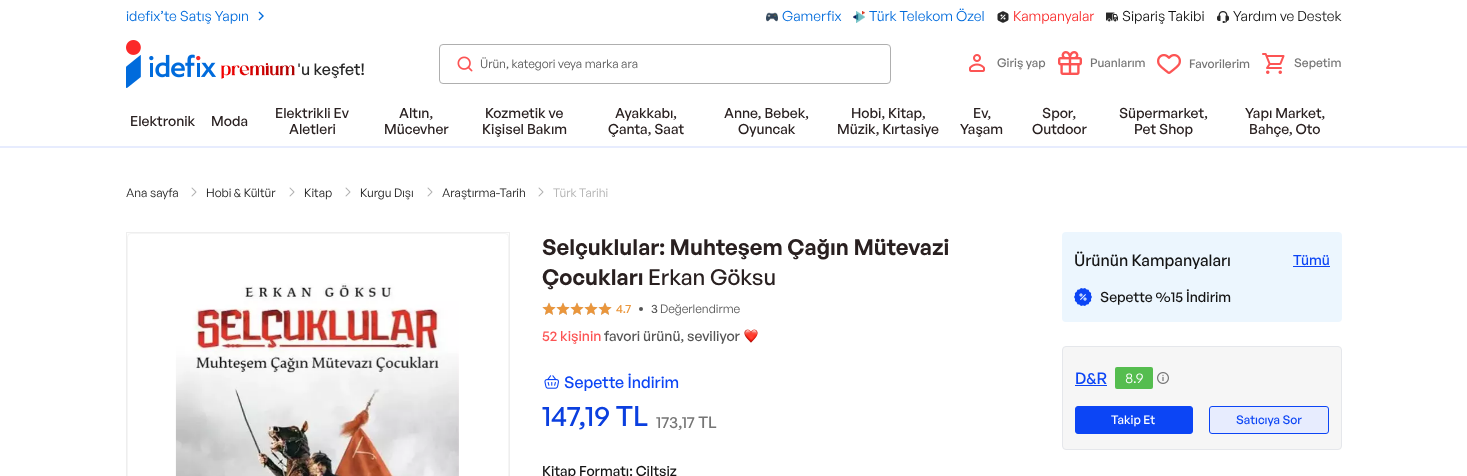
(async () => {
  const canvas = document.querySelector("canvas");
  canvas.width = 1467;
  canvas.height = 476;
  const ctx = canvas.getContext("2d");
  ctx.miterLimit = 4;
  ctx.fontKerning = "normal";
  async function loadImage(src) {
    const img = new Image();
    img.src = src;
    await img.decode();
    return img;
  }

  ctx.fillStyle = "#ffffff";
  ctx.fillRect(0, 0, 1467, 476);
  ctx.drawImage(await loadImage("img/1.png"), 258, 11, 6, 10);
  ctx.drawImage(await loadImage("img/2.png"), 766, 12, 12, 10);
  ctx.drawImage(await loadImage("img/3.png"), 853, 11, 12, 12);
  ctx.drawImage(await loadImage("img/4.png"), 997, 11, 12, 12);
  ctx.drawImage(await loadImage("img/5.png"), 1106, 12, 12, 10);
  ctx.drawImage(await loadImage("img/6.png"), 1217, 11, 12, 12);
  ctx.drawImage(await loadImage("img/7.png"), 126, 40, 90, 48);
  ctx.drawImage(await loadImage("img/8.png"), 221, 63, 74, 16);
  ctx.beginPath();
  ctx.roundRect(439.5, 44.5, 451, 39, 3.5);
  ctx.strokeStyle = "#afafaf";
  ctx.stroke();
  ctx.drawImage(await loadImage("img/9.png"), 457, 56, 16, 16);
  ctx.drawImage(await loadImage("img/10.png"), 969, 54, 16, 18);
  ctx.drawImage(await loadImage("img/11.png"), 1058, 51, 24, 24);
  ctx.drawImage(await loadImage("img/12.png"), 1157, 54, 24, 20);
  ctx.drawImage(await loadImage("img/13.png"), 1262, 53, 23, 21);
  ctx.fillStyle = "#e7ecfe";
  ctx.fillRect(0, 146, 1467, 2);
  ctx.drawImage(await loadImage("img/14.png"), 191, 187, 6, 10);
  ctx.drawImage(await loadImage("img/14.png"), 289, 187, 6, 10);
  ctx.drawImage(await loadImage("img/14.png"), 345, 187, 6, 10);
  ctx.drawImage(await loadImage("img/14.png"), 427, 187, 6, 10);
  ctx.drawImage(await loadImage("img/14.png"), 538, 187, 6, 10);
  ctx.strokeStyle = "#eeeeee";
  ctx.strokeRect(126.5, 232.5, 383, 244);
  ctx.beginPath();
  ctx.roundRect(127.5, 233.5, 381, 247, 3.5);
  ctx.strokeStyle = "#f5f5f5";
  ctx.stroke();
  ctx.drawImage(await loadImage("img/15.png"), 175, 283, 284, 193);
  ctx.drawImage(await loadImage("img/17.png"), 542, 303, 14, 12);
  ctx.drawImage(await loadImage("img/16.png"), 542, 302, 14, 13);
  ctx.drawImage(await loadImage("img/17.png"), 556, 303, 14, 12);
  ctx.drawImage(await loadImage("img/16.png"), 556, 302, 14, 13);
  ctx.drawImage(await loadImage("img/17.png"), 570, 303, 14, 12);
  ctx.drawImage(await loadImage("img/16.png"), 570, 302, 14, 13);
  ctx.drawImage(await loadImage("img/17.png"), 584, 303, 14, 12);
  ctx.drawImage(await loadImage("img/16.png"), 584, 302, 14, 13);
  ctx.drawImage(await loadImage("img/17.png"), 598, 303, 14, 12);
  ctx.drawImage(await loadImage("img/16.png"), 598, 302, 14, 13);
  ctx.fillStyle = "#545454";
  ctx.beginPath();
  ctx.arc(641, 309, 2, 0, Math.PI * 2);
  ctx.fill();
  ctx.drawImage(await loadImage("img/18.png"), 744, 329, 14, 14);
  ctx.drawImage(await loadImage("img/19.png"), 544, 375, 15, 14);
  ctx.fillStyle = "#ecf6fe";
  ctx.beginPath();
  ctx.roundRect(1062, 232, 280, 90, 4);
  ctx.fill();
  ctx.fillStyle = "#0c45f5";
  ctx.fillRect(1293, 266, 37, 1);
  ctx.drawImage(await loadImage("img/20.png"), 1074, 288, 18, 18);
  ctx.fillStyle = "#f6f6f6";
  ctx.beginPath();
  ctx.roundRect(1062.5, 346.5, 279, 103, 3.5);
  ctx.fill();
  ctx.strokeStyle = "#e5e7eb";
  ctx.stroke();
  ctx.fillStyle = "#0c45f5";
  ctx.fillRect(1075, 385, 32, 1);
  ctx.fillStyle = "#55bd4f";
  ctx.beginPath();
  ctx.roundRect(1115, 367, 38, 22, 2);
  ctx.fill();
  ctx.drawImage(await loadImage("img/21.png"), 1157, 372, 12, 12);
  ctx.fillStyle = "#0c45f5";
  ctx.beginPath();
  ctx.roundRect(1075.5, 406.5, 117, 27, 2.5);
  ctx.fill();
  ctx.strokeStyle = "#0c45f5";
  ctx.stroke();
  ctx.fillStyle = "#e7ecfe";
  ctx.beginPath();
  ctx.roundRect(1209.5, 406.5, 119, 27, 2.5);
  ctx.fill();
  ctx.stroke();
  ctx.font = "14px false";
  ctx.fillStyle = "#006bdc";
  for (const [text, x, y] of [
    ["idefix’te Satış Yapın", 126, 21],
    ["Gamerfix", 782, 21],
    ["Türk Telekom Özel", 869, 21],
  ]) {
    ctx.fillText(text, x, y);
  }
  ctx.fillStyle = "#f92c2c";
  ctx.fillText("Kampanyalar", 1013, 21);
  ctx.fillStyle = "#0d0d0d";
  ctx.fillText("Sipariş Takibi", 1122, 21);
  ctx.fillStyle = "#141414";
  ctx.fillText("Yardım ve Destek", 1233, 21);
  ctx.font = "500 16px General Sans";
  ctx.fillStyle = "#282828";
  ctx.fillText("'u keşfet!", 297, 75);
  ctx.font = "12px false";
  ctx.fillStyle = "#545454";
  ctx.fillText("Ürün, kategori veya marka ara", 480, 68);
  ctx.font = "500 12px General Sans";
  ctx.fillStyle = "#757575";
  for (const [text, x, y] of [
    ["Giriş yap", 997, 67],
    ["Puanlarım", 1090, 67],
    ["Favorilerim", 1189, 68],
    ["Sepetim", 1294, 67],
  ]) {
    ctx.fillText(text, x, y);
  }
  ctx.font = "500 14px General Sans";
  ctx.fillStyle = "#292020";
  for (const [text, x, y] of [
    ["Elektronik", 130, 126],
    ["Moda", 211, 126],
    ["Elektrikli Ev", 275, 118],
    ["Aletleri", 289, 134],
    ["Altın,", 399, 118],
    ["Mücevher", 384, 134],
    ["Kozmetik ve", 485, 118],
    ["Kişisel Bakım", 482, 134],
    ["Ayakkabı,", 615, 118],
    ["Çanta, Saat", 608, 134],
    ["Anne, Bebek,", 724, 118],
    ["Oyuncak", 738, 134],
    ["Hobi, Kitap,", 851, 118],
    ["Müzik, Kırtasiye", 837, 134],
    ["Ev,", 973, 118],
    ["Yaşam", 960, 134],
    ["Spor,", 1042, 118],
    ["Outdoor", 1032, 134],
    ["Süpermarket,", 1119, 118],
    ["Pet Shop", 1134, 134],
    ["Yapı Market,", 1245, 118],
    ["Bahçe, Oto", 1249, 134],
  ]) {
    ctx.fillText(text, x, y);
  }
  ctx.font = "12px false";
  ctx.fillStyle = "#141414";
  for (const [text, x, y] of [
    ["Ana sayfa", 126, 197],
    ["Hobi & Kültür", 206, 197],
    ["Kitap", 304, 197],
    ["Kurgu Dışı", 360, 197],
    ["Araştırma-Tarih", 442, 197],
  ]) {
    ctx.fillText(text, x, y);
  }
  ctx.fillStyle = "#afafaf";
  ctx.fillText("Türk Tarihi", 553, 197);
  ctx.font = "600 22px General Sans";
  ctx.fillStyle = "#292020";
  ctx.fillText("Selçuklular: Muhteşem Çağın Mütevazi", 542, 255);
  ctx.fillText("Çocukları", 542, 285);
  ctx.font = "500 22px General Sans";
  ctx.fillText("Erkan Göksu", 648, 285);
  ctx.font = "500 12px General Sans";
  ctx.fillStyle = "#ea963c";
  ctx.fillText("4.7", 616, 313);
  ctx.fillStyle = "#545454";
  ctx.fillText("3", 651, 313);
  ctx.font = "12px false";
  ctx.fillText("Değerlendirme", 660, 313);
  ctx.font = "500 14px General Sans";
  ctx.fillStyle = "#fc5454";
  ctx.fillText("52 kişinin", 542, 341);
  ctx.fillStyle = "#545454";
  ctx.fillText("favori ürünü, seviliyor", 604, 341);
  ctx.font = "500 16px General Sans";
  ctx.fillStyle = "#0c45f5";
  ctx.fillText("Sepette İndirim", 564, 388);
  ctx.font = "500 28px General Sans";
  ctx.fillStyle = "#0b3fdf";
  ctx.fillText("147,19 TL", 542, 426);
  ctx.font = "500 16px General Sans";
  ctx.fillStyle = "#757575";
  ctx.fillText("173,17 TL", 656, 428);
  ctx.font = "500 14px General Sans";
  ctx.fillStyle = "#141414";
  ctx.fillText("Kitap Formatı: Ciltsiz", 542, 476);
  ctx.font = "500 16px General Sans";
  ctx.fillText("Ürünün Kampanyaları", 1074, 266);
  ctx.font = "500 14px General Sans";
  ctx.fillStyle = "#0c45f5";
  ctx.fillText("Tümü", 1293, 265);
  ctx.fillStyle = "#141414";
  ctx.fillText("Sepette %15 İndirim", 1100, 302);
  ctx.font = "500 16px General Sans";
  ctx.fillStyle = "#0c45f5";
  ctx.fillText("D&R", 1075, 384);
  ctx.font = "14px false";
  ctx.fillStyle = "#ffffff";
  ctx.fillText("8.9", 1125, 383);
  ctx.font = "500 12px General Sans";
  ctx.fillText("Takip Et", 1111, 424);
  ctx.fillStyle = "#0c45f5";
  ctx.fillText("Satıcıya Sor", 1236, 424);
})();
